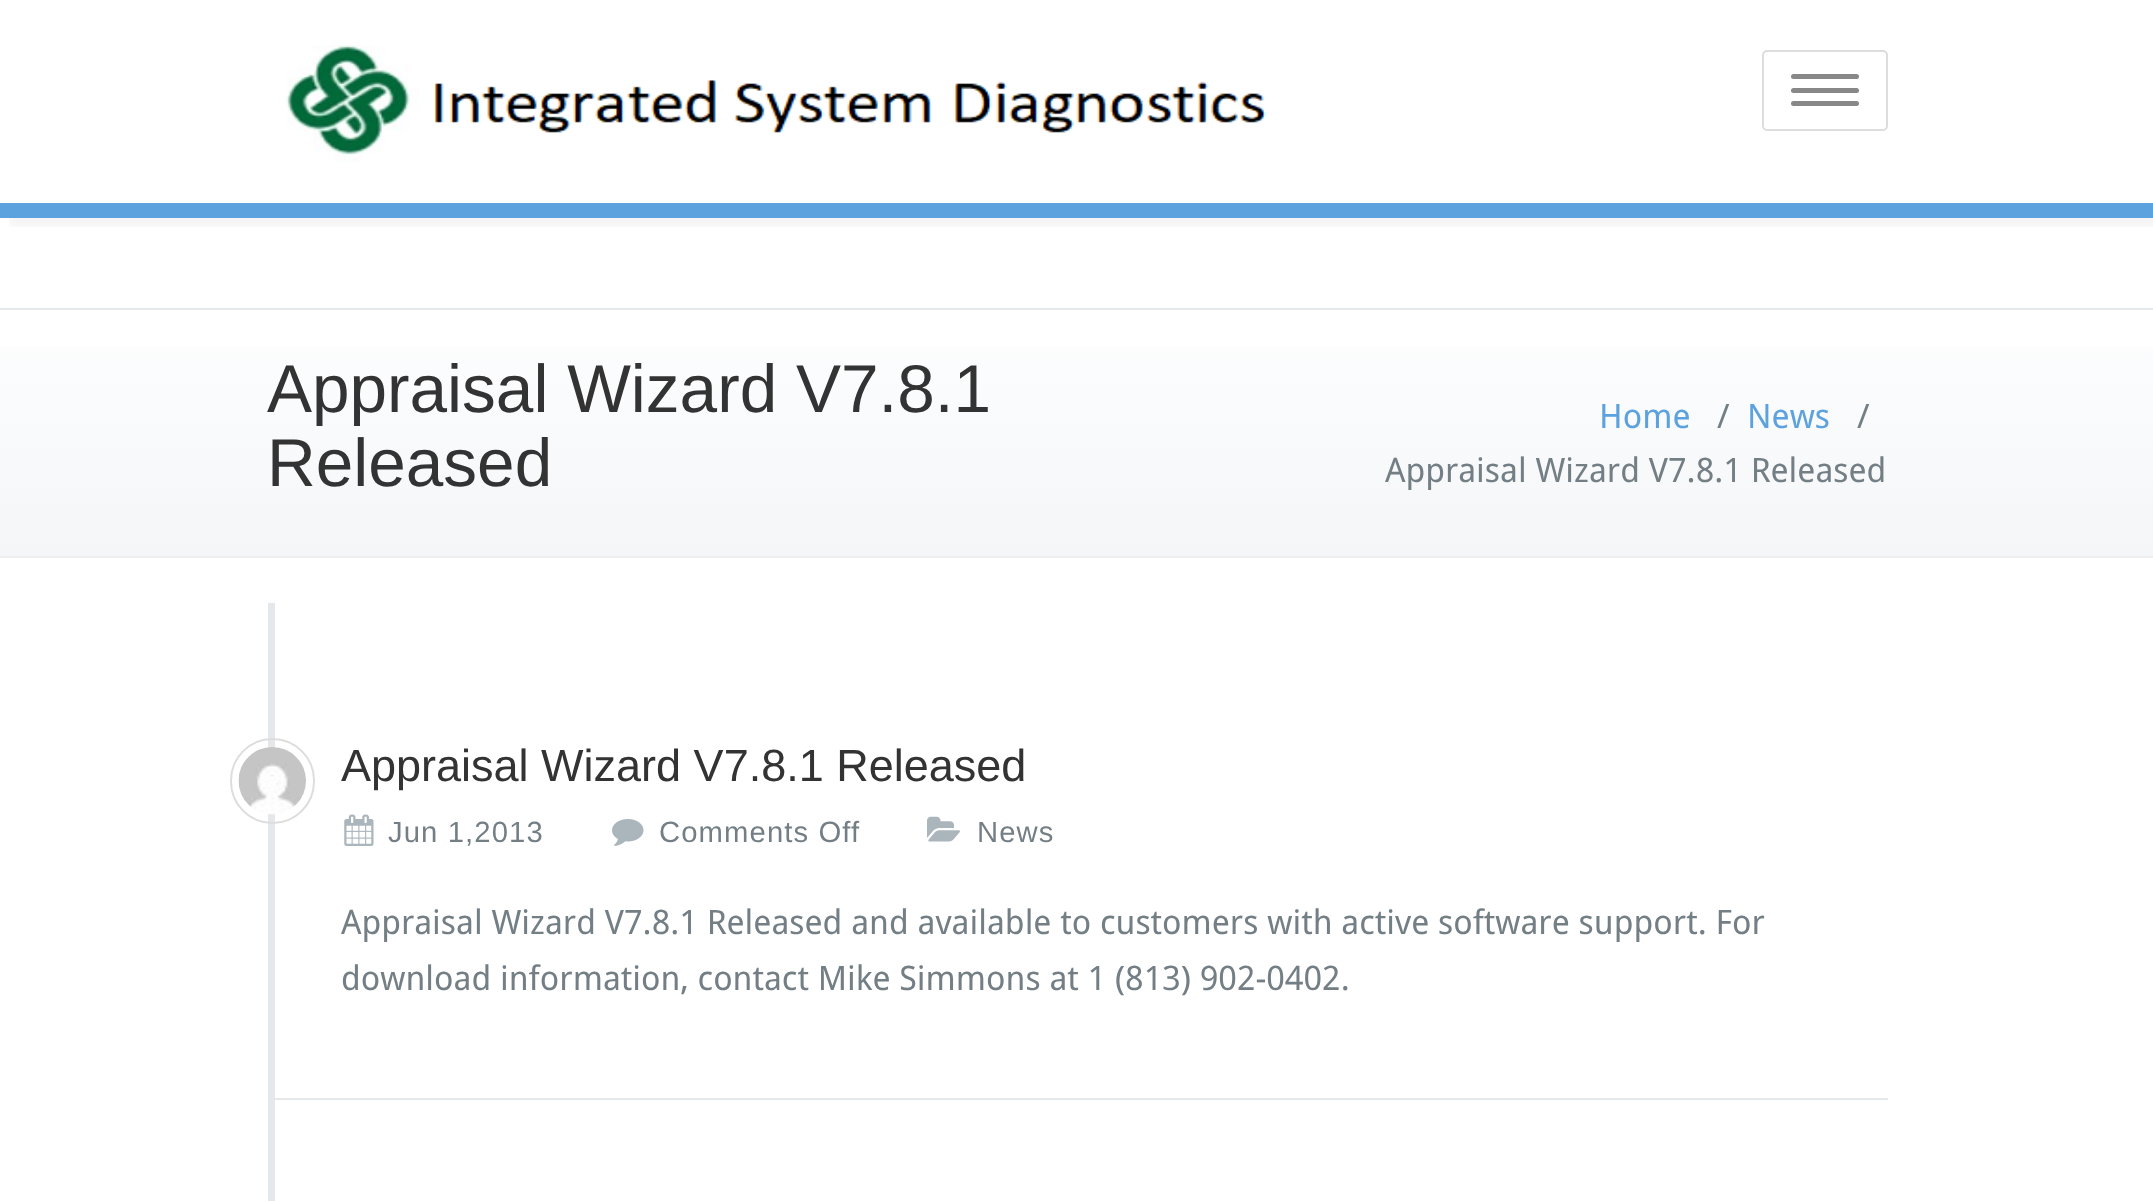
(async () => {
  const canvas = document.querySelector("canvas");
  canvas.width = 2153;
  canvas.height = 1201;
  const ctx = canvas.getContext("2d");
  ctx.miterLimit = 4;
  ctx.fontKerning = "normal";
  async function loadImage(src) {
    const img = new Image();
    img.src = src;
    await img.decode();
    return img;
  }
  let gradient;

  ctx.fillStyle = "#ffffff";
  ctx.fillRect(0, 0, 2153, 1201);
  ctx.save();
  ctx.beginPath();
  ctx.rect(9, 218, 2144, 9);
  ctx.clip();
  ctx.fillStyle = "rgba(0, 0, 0, 0.04)";
  ctx.filter = "blur(3.5px)";
  ctx.beginPath();
  ctx.rect(9, 9, 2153, 218);
  ctx.fill();
  ctx.filter = "none";
  ctx.restore();
  ctx.fillStyle = "#5ca2df";
  ctx.fillRect(0, 203, 2153, 15);
  ctx.drawImage(await loadImage("img/1.png"), 286, 45, 980, 117);
  ctx.beginPath();
  ctx.roundRect(1763, 51, 124, 79, 4);
  ctx.strokeStyle = "#dddddd";
  ctx.lineWidth = 2;
  ctx.stroke();
  ctx.fillStyle = "#888888";
  ctx.beginPath();
  ctx.roundRect(1791, 74, 68, 5, 2.5);
  ctx.fill();
  ctx.beginPath();
  ctx.roundRect(1791, 88, 68, 5, 2.5);
  ctx.fill();
  ctx.beginPath();
  ctx.roundRect(1791, 101, 68, 5, 2.5);
  ctx.fill();
  gradient = ctx.createLinearGradient(1077, 310, 1077, 556);
  gradient.addColorStop(0, "#fefeff");
  gradient.addColorStop(1, "#f4f6f7");
  ctx.fillStyle = gradient;
  ctx.fillRect(0, 347, 2153, 209);
  for (const [x, y, w, h, color] of [
    [0, 308, 2153, 2, "#e4e8ea"],
    [0, 556, 2153, 2, "#eeeeee"],
    [268, 603, 7, 598, "#e4e8ea"],
    [275, 1098, 1613, 2, "#e4e8ea"],
  ]) {
    ctx.fillStyle = color;
    ctx.fillRect(x, y, w, h);
  }
  ctx.beginPath();
  ctx.roundRect(231, 739, 83, 84, 41.5);
  ctx.stroke();
  ctx.drawImage(await loadImage("img/2.png"), 238, 747, 68, 68);
  ctx.drawImage(await loadImage("img/3.png"), 344, 814, 30, 32);
  ctx.drawImage(await loadImage("img/4.png"), 612, 819, 32, 27);
  ctx.drawImage(await loadImage("img/5.png"), 927, 816, 33, 26);
  ctx.font = "67.5px Liberation Sans";
  ctx.fillStyle = "#333333";
  ctx.fillText("Appraisal Wizard V7.8.1", 267, 412);
  ctx.fillText("Released", 267, 486);
  ctx.font = "33.75px Droid Sans";
  ctx.fillStyle = "#5ca2df";
  ctx.fillText("Home", 1599, 428);
  ctx.fillStyle = "#737f85";
  ctx.fillText("/", 1717, 428);
  ctx.fillStyle = "#5ca2df";
  ctx.fillText("News", 1747, 428);
  ctx.fillStyle = "#737f85";
  ctx.fillText("/", 1857, 428);
  ctx.fillText("Appraisal Wizard V7.8.1 Released", 1385, 482);
  ctx.font = "45px Liberation Sans";
  ctx.fillStyle = "#333333";
  ctx.fillText("Appraisal Wizard V7.8.1 Released", 341, 781);
  ctx.letterSpacing = "1.1px";
  ctx.font = "29.25px Liberation Sans";
  ctx.fillStyle = "#737f85";
  for (const [text, x, y] of [
    ["Jun 1,2013", 388, 842],
    ["Comments Off", 659, 842],
    ["News", 977, 842],
  ]) {
    ctx.fillText(text, x, y);
  }
  ctx.letterSpacing = "0px";
  ctx.font = "33.75px Droid Sans";
  ctx.fillText("Appraisal Wizard V7.8.1 Released and available to customers with active software support. For", 341, 934);
  ctx.fillText("download information, contact Mike Simmons at 1 (813) 902-0402.", 341, 990);
})();
